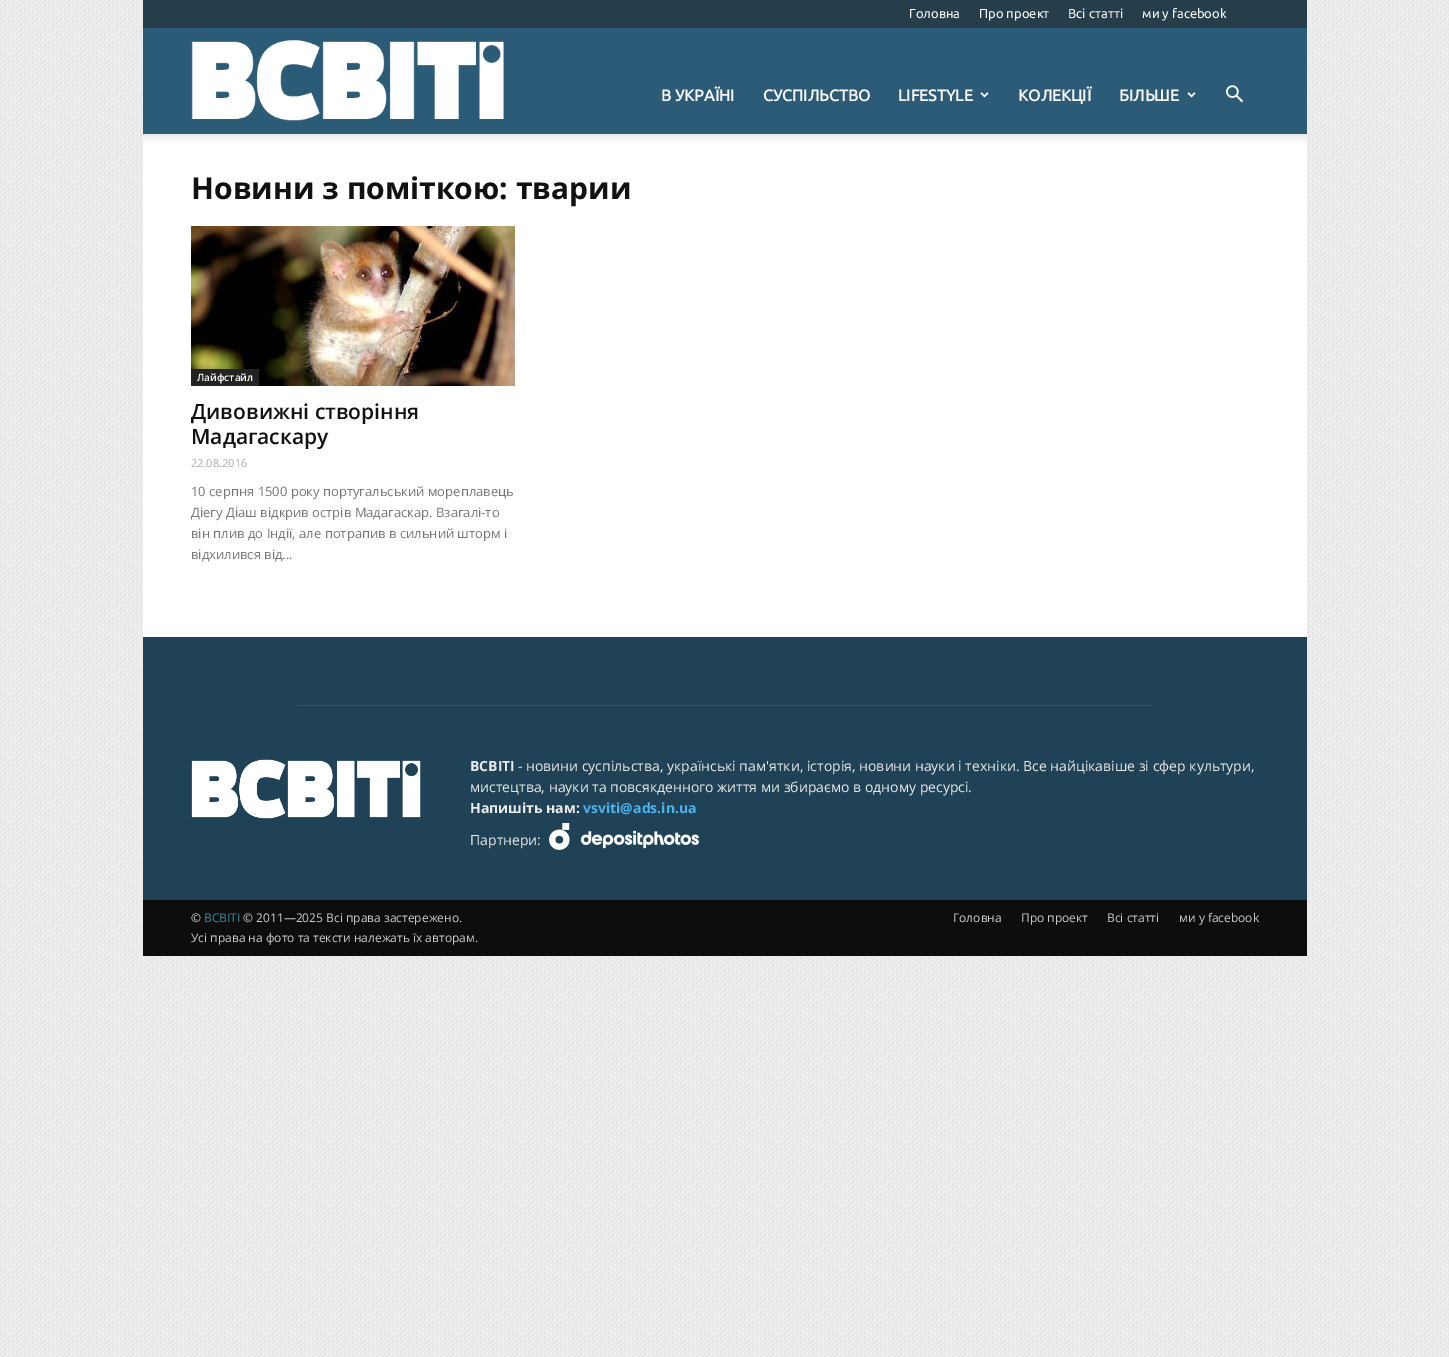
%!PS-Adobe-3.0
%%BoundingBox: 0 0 1449 1357
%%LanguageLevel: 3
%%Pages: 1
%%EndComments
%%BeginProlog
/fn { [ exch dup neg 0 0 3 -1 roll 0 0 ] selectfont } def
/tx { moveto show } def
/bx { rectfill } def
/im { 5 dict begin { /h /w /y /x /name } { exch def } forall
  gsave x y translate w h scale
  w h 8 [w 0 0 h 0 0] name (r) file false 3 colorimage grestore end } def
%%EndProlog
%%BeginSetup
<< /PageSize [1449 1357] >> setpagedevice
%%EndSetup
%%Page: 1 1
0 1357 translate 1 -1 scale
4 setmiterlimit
1 setgray
0 0 1449 1357 bx
(image0.raw) 0 0 1449 1357 im
0.149 0.239 0.294 setrgbcolor
143 0 1164 28 bx
/Ubuntu-Regular 13 fn
0.969 setgray
(Головна) 909 18 tx
(Про проект) 979 18 tx
(Всі статті) 1068 18 tx
(ми у facebook) 1142 18 tx
0.173 0.357 0.471 setrgbcolor
143 28 1164 106 bx
(image1.raw) 191 40 313 81 im
/Ubuntu-Bold 16 fn
0.969 setgray
(В УКРАЇНІ) 661 101 tx
(СУСПІЛЬСТВО) 763 101 tx
(LIFESTYLE) 898 101 tx
(image2.raw) 980 92 9 6 im
(КОЛЕКЦІЇ) 1018 101 tx
(БІЛЬШЕ) 1119 101 tx
(image2.raw) 1187 92 9 6 im
(image3.raw) 1226 85 17 18 im
1 setgray
143 134 1164 503 bx
(image4.raw) 143 134 1164 9 im
/OpenSans-Bold 30 fn
0.067 setgray
(Новини з поміткою: тварии) 191 199 tx
(image5.raw) 191 226 324 160 im
0.133 setgray
191 369 68 17 bx
/OpenSans-SemiBold 10 fn
1 setgray
(Лайфстайл) 197 381 tx
/OpenSans-SemiBold 21 fn
0.067 setgray
(Дивовижні створіння) 191 419 tx
(Мадагаскару) 191 444 tx
/OpenSans-Regular 11 fn
0.667 setgray
(22.08.2016) 191 467 tx
/OpenSans-Regular 13 fn
0.467 setgray
(10 серпня 1500 року португальський мореплавець) 191 496 tx
(Діегу Діаш відкрив острів Мадагаскар. Взагалі-то) 191 517 tx
(він плив до Індії, але потрапив в сильний шторм і) 191 538 tx
(відхилився від...) 191 559 tx
0.125 0.259 0.341 setrgbcolor
143 637 1164 263 bx
0.212 0.333 0.408 setrgbcolor
297 705 855 1 bx
(image6.raw) 191 759 230 60 im
/OpenSans-Bold 14 fn
0.918 setgray
(ВСВІТІ) 470 771 tx
/OpenSans-Regular 14 fn
(- новини суспільства, українські пам'ятки, історія, новини науки і техніки. Все найцікавіше зі сфер культури,) 518 771 tx
(мистецтва, науки та повсякденного життя ми збираємо в одному ресурсі.) 470 792 tx
/OpenSans-Bold 14 fn
(Напишіть нам:) 470 813 tx
0.302 0.698 0.925 setrgbcolor
(vsviti@ads.in.ua) 583 813 tx
/OpenSans-Regular 14 fn
0.918 setgray
(Партнери:) 470 845 tx
(image7.raw) 549 823 150 27 im
0.051 setgray
143 900 1164 56 bx
/OpenSans-Regular 12 fn
0.8 setgray
(©) 191 922 tx
0.216 0.545 0.639 setrgbcolor
(ВСВІТІ) 204 922 tx
0.8 setgray
(© 2011—2025 Всі права застережено.) 243 922 tx
(Усі права на фото та тексти належать їх авторам.) 191 942 tx
(Головна) 953 922 tx
(Про проект) 1021 922 tx
(Всі статті) 1107 922 tx
(ми у facebook) 1179 922 tx
showpage
%%EOF
